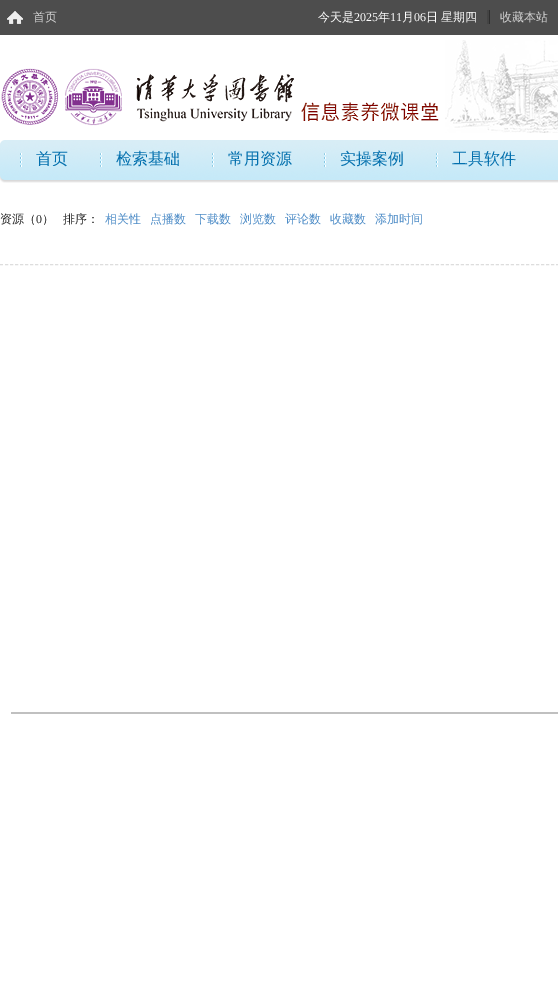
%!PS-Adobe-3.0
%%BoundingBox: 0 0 558 1005
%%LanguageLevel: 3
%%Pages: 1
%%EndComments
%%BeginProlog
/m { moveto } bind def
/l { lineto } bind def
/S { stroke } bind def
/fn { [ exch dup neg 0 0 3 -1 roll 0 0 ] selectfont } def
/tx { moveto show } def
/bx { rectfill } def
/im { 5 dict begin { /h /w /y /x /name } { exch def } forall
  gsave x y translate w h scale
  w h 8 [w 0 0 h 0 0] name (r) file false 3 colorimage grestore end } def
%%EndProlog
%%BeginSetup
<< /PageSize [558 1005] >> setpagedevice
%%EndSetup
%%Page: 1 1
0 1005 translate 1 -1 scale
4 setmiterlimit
1 setgray
0 0 558 1005 bx
0.302 setgray
0 0 558 35 bx
(image0.raw) 7 11 16 13 im
/WenQuanYiZenHei-Medium 12 fn
0.827 setgray
(首页) 33 21 tx
1 setgray
(今天是) 318 21 tx
/LiberationSerif-Regular 12 fn
(2025) 354 21 tx
/WenQuanYiZenHei-Medium 12 fn
(年) 378 21 tx
/LiberationSerif-Regular 12 fn
(11) 390 21 tx
/WenQuanYiZenHei-Medium 12 fn
(月) 402 21 tx
/LiberationSerif-Regular 12 fn
(06) 414 21 tx
/WenQuanYiZenHei-Medium 12 fn
(日) 426 21 tx
(星期四) 441 21 tx
0.267 setgray
487 10 2 14 bx
0.827 setgray
(收藏本站) 500 21 tx
0.18 setgray
489 10 1 14 bx
(image1.raw) 1 68 438 58 im
(image2.raw) 445 40 113 93 im
(image3.raw) 0 140 558 43 im
(image4.raw) 20 153 2 14 im
/WenQuanYiZenHei-Medium 16 fn
0.012 0.439 0.682 setrgbcolor
(首页) 36 164 tx
(image5.raw) 100 153 2 14 im
(检索基础) 116 164 tx
(image5.raw) 212 153 2 14 im
(常用资源) 228 164 tx
(image4.raw) 324 153 2 14 im
(实操案例) 340 164 tx
(image4.raw) 436 153 2 14 im
(工具软件) 452 164 tx
/WenQuanYiZenHei-Medium 12 fn
0.145 setgray
(资源（) 0 223 tx
/LiberationSerif-Regular 12 fn
(0) 36 223 tx
/WenQuanYiZenHei-Medium 12 fn
(）) 42 223 tx
(排序：) 63 223 tx
0.302 0.549 0.78 setrgbcolor
(相关性) 105 223 tx
(点播数) 150 223 tx
(下载数) 195 223 tx
(浏览数) 240 223 tx
(评论数) 285 223 tx
(收藏数) 330 223 tx
(添加时间) 375 223 tx
0.867 setgray
[3 2.01] 0 setdash
0 264.5 m 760 264.5 l S
0.753 setgray
11 712 547 2 bx
showpage
%%EOF
